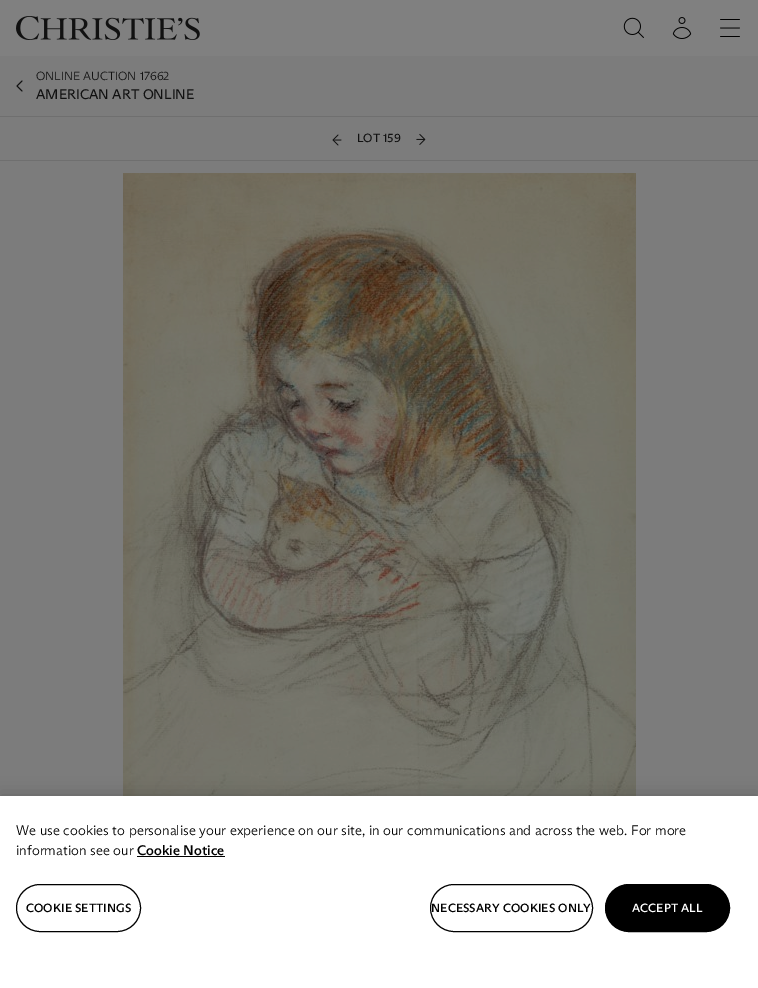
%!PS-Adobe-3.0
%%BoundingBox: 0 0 758 988
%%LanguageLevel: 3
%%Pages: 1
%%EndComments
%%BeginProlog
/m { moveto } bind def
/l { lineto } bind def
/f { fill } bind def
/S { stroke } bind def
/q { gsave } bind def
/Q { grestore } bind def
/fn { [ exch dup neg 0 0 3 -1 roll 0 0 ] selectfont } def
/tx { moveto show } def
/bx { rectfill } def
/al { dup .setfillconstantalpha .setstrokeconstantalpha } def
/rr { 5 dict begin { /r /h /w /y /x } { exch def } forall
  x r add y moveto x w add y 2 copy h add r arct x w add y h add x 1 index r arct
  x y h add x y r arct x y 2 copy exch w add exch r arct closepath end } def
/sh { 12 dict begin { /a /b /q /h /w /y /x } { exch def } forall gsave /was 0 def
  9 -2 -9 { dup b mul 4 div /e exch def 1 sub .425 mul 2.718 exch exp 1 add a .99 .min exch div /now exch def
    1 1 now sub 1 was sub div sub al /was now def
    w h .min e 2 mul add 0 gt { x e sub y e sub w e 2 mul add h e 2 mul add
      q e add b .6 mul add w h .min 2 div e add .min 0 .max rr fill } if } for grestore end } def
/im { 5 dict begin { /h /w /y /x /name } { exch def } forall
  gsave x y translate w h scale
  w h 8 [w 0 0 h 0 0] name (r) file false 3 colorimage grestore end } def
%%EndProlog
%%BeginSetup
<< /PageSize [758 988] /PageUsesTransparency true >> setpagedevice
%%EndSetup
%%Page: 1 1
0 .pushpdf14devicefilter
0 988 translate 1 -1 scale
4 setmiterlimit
0.502 setgray
0 0 758 988 bx
(image0.raw) 16 16 184 24 im
(image1.raw) 623 17 21 21 im
(image2.raw) 672 17 20 22 im
(image3.raw) 720 19 20 18 im
0.486 setgray
0 56 758 740 bx
0.067 setgray
1 setlinecap
1 setlinejoin
22 81 m 17 86 l 22 91 l S
/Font-Light 12 fn
(ONLINE AUCTION 17662) 36 80 tx
/Font-Regular 14 fn
(AMERICAN ART ONLINE) 36 99 tx
0.435 setgray
0 116 758 1 bx
0 160 758 1 bx
(image4.raw) 332 134 10 12 im
/Font-Regular 12 fn
0.067 setgray
(LOT 159) 357 142 tx
(image5.raw) 416 133 10 12 im
(image6.raw) 123 173 513 623 im
0 setgray
0 796 758 192 0 9 0.2 sh
1 setgray
0 796 758 192 bx
/Font-Light 14 fn
0 setgray
(We use cookies to personalise your experience on our site, in our communications and across the web. For more) 16 835 tx
(information see our) 16 855 tx
/Font-Medium 14 fn
(Cookie Notice) 137 855 tx
137 856 88 1 bx
0 setlinecap
0 setlinejoin
16.5 884.5 124 47 23.5 rr S
/Font-Medium 12 fn
26 912 m 0.1 0 (COOKIE SETTINGS) ashow
430.5 884.5 162 47 23.5 rr S
431 912 m 0.1 0 (NECESSARY COOKIES ONLY) ashow
605.5 884.5 124 47 23.5 rr q f Q
S
1 setgray
632 912 m 0.1 0 (ACCEPT ALL) ashow
.poppdf14devicefilter showpage
%%EOF
